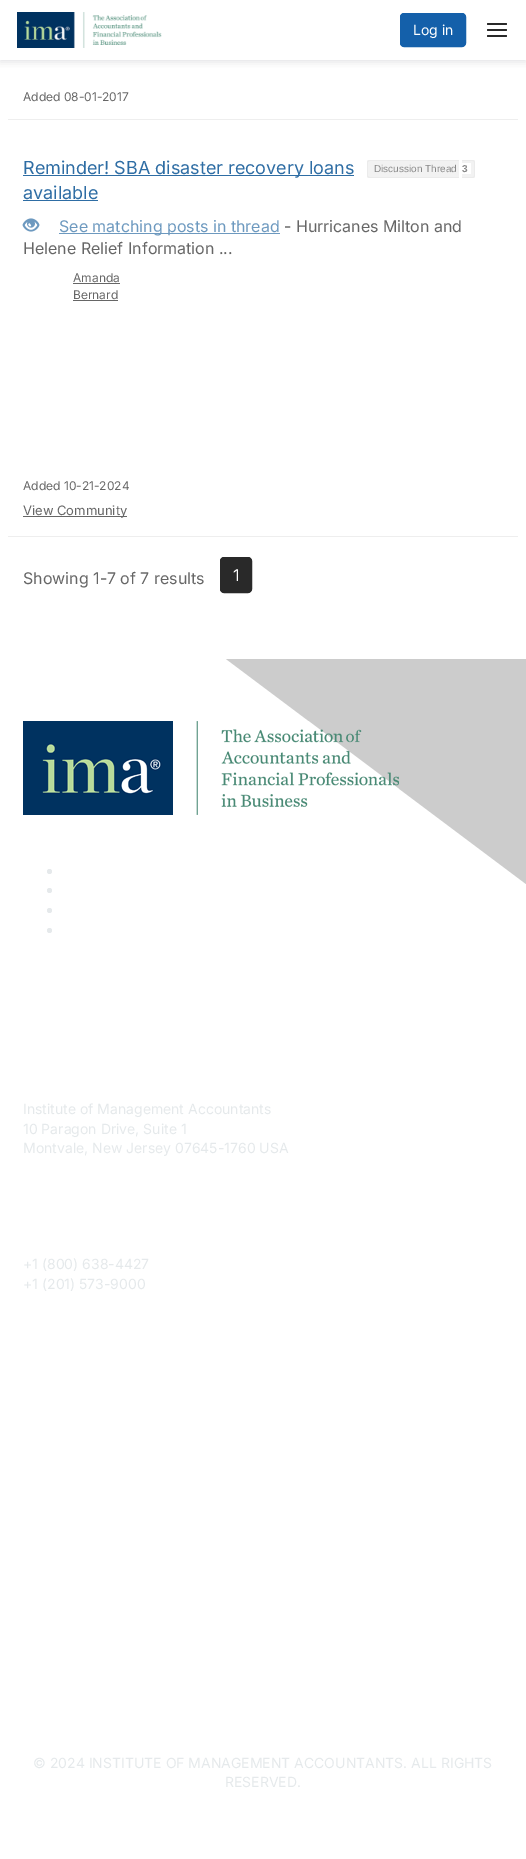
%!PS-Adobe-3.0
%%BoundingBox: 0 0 526 1859
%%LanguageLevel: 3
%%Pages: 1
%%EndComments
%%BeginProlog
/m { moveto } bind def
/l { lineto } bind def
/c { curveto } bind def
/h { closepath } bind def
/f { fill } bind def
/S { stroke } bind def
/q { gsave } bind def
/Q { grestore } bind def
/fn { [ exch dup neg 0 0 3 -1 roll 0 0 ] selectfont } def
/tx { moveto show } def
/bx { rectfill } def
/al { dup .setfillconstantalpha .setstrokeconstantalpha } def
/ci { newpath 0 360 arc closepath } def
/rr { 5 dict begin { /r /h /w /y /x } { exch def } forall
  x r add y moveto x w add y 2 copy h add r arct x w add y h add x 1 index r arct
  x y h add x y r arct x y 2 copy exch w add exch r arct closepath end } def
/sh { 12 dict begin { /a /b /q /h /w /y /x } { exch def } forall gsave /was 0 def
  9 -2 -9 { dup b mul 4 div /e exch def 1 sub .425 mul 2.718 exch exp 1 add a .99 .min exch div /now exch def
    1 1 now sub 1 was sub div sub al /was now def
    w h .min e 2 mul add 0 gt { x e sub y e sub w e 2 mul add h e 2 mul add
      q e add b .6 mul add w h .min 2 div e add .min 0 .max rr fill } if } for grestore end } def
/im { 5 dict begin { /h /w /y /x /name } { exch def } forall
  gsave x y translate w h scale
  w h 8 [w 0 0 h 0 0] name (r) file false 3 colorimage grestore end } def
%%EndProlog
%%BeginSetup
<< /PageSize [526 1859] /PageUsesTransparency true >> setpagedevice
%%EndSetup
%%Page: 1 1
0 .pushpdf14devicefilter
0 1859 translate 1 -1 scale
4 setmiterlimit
1 setgray
0 0 526 1859 bx
q
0 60 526 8 rectclip
0.514 0.529 0.569 setrgbcolor
0 2 526 60 0 4 0.24 sh
Q
(image0.raw) 17 12 145 36 im
0.078 0.376 0.667 setrgbcolor
400.5 13.5 65 33 3.5 rr q f Q
S
/Inter-Regular 14 fn
1 setgray
(Log in) 413 35 tx
0.161 setgray
487 23 20 2 1 rr f
487 29 20 2 1 rr f
487 35 20 2 1 rr f
/Inter-Regular 12 fn
0.4 setgray
(Added 08-01-2017) 23 101 tx
0.933 setgray
8 119 510 1 bx
0.18 0.427 0.643 setrgbcolor
23 175 331 1 bx
/Inter-Regular 18 fn
(Reminder! SBA disaster recovery loans) 23 174 tx
0.949 setgray
369.5 160 m 459 160 l 459 178 l 369.5 178 l 368 178 367 177 367 175.5 c 367 162.5 l 367 161 368 160 369.5 160 c h f
0.922 setgray
370 160 m 459 160 l 459 178 l 370 178 l 368 178 367 177 367 176 c 367 162 l 367 161 368 160 370 160 c h 370 161 m 459 161 l 459 177 l 370 177 l 369 177 368 176 368 176 c 368 162 l 368 162 369 161 370 161 c h eofill
/LiberationSans-Regular 10 fn
0.533 setgray
(Discussion Thread) 374 172 tx
0.949 setgray
462 160 m 472.5 160 l 474 160 475 161 475 162.5 c 475 175.5 l 475 177 474 178 472.5 178 c 462 178 l h f
0.922 setgray
462 160 m 472.5 160 l 474 160 475 161 475 162.5 c 475 175.5 l 475 177 474 178 472.5 178 c 462 178 l h 462 161 m 472.5 161 l 473.5 161 474 161.5 474 162.5 c 474 175.5 l 474 176.5 473.5 177 472.5 177 c 462 177 l h eofill
1 setgray
462 163 9 11 bx
/LiberationSans-Bold 10 fn
0.533 setgray
(3) 462 172 tx
/Inter-Regular 18 fn
0.18 0.427 0.643 setrgbcolor
(available) 23 199 tx
23 200 75 1 bx
(image1.raw) 22 218 18 14 im
0.427 0.6 0.749 setrgbcolor
59 233 221 1 bx
/Inter-Regular 16 fn
(See matching posts in thread) 59 232 tx
0.4 setgray
(- Hurricanes Milton and) 284 232 tx
(Helene Relief Information ...) 23 254 tx
/Inter-Regular 12 fn
(Amanda) 73 282 tx
73 283 47 1 bx
(Bernard) 73 299 tx
73 300 45 1 bx
(Added 10-21-2024) 23 490 tx
23 516 104 1 bx
/Inter-Regular 13 fn
(View Community) 23 515 tx
0.933 setgray
8 536 510 1 bx
/Inter-Regular 16 fn
0.4 setgray
(Showing 1-7 of 7 results) 23 584 tx
0.161 setgray
220.5 557.5 31 35 3.5 rr q f Q
S
1 setgray
(1) 233 581 tx
0.8 setgray
526 659 m 526 884 l 226 659 l h f
(image2.raw) 23 721 376 94 im
0.898 0.914 0.922 setrgbcolor
49.5 871.5 2.5 ci f
49.5 890.5 2.5 ci f
49.5 910.5 2.5 ci f
49.5 930.5 2.5 ci f
/Inter-Regular 14 fn
(Institute of Management Accountants) 23 1114 tx
(10 Paragon Drive, Suite 1) 23 1134 tx
(Montvale, New Jersey 07645-1760 USA) 23 1153 tx
(+1 \(800\) 638-4427) 23 1269 tx
(+1 \(201\) 573-9000) 23 1289 tx
(© 2024 INSTITUTE OF MANAGEMENT ACCOUNTANTS. ALL RIGHTS) 33 1768 tx
(RESERVED.) 225 1787 tx
.poppdf14devicefilter showpage
%%EOF
